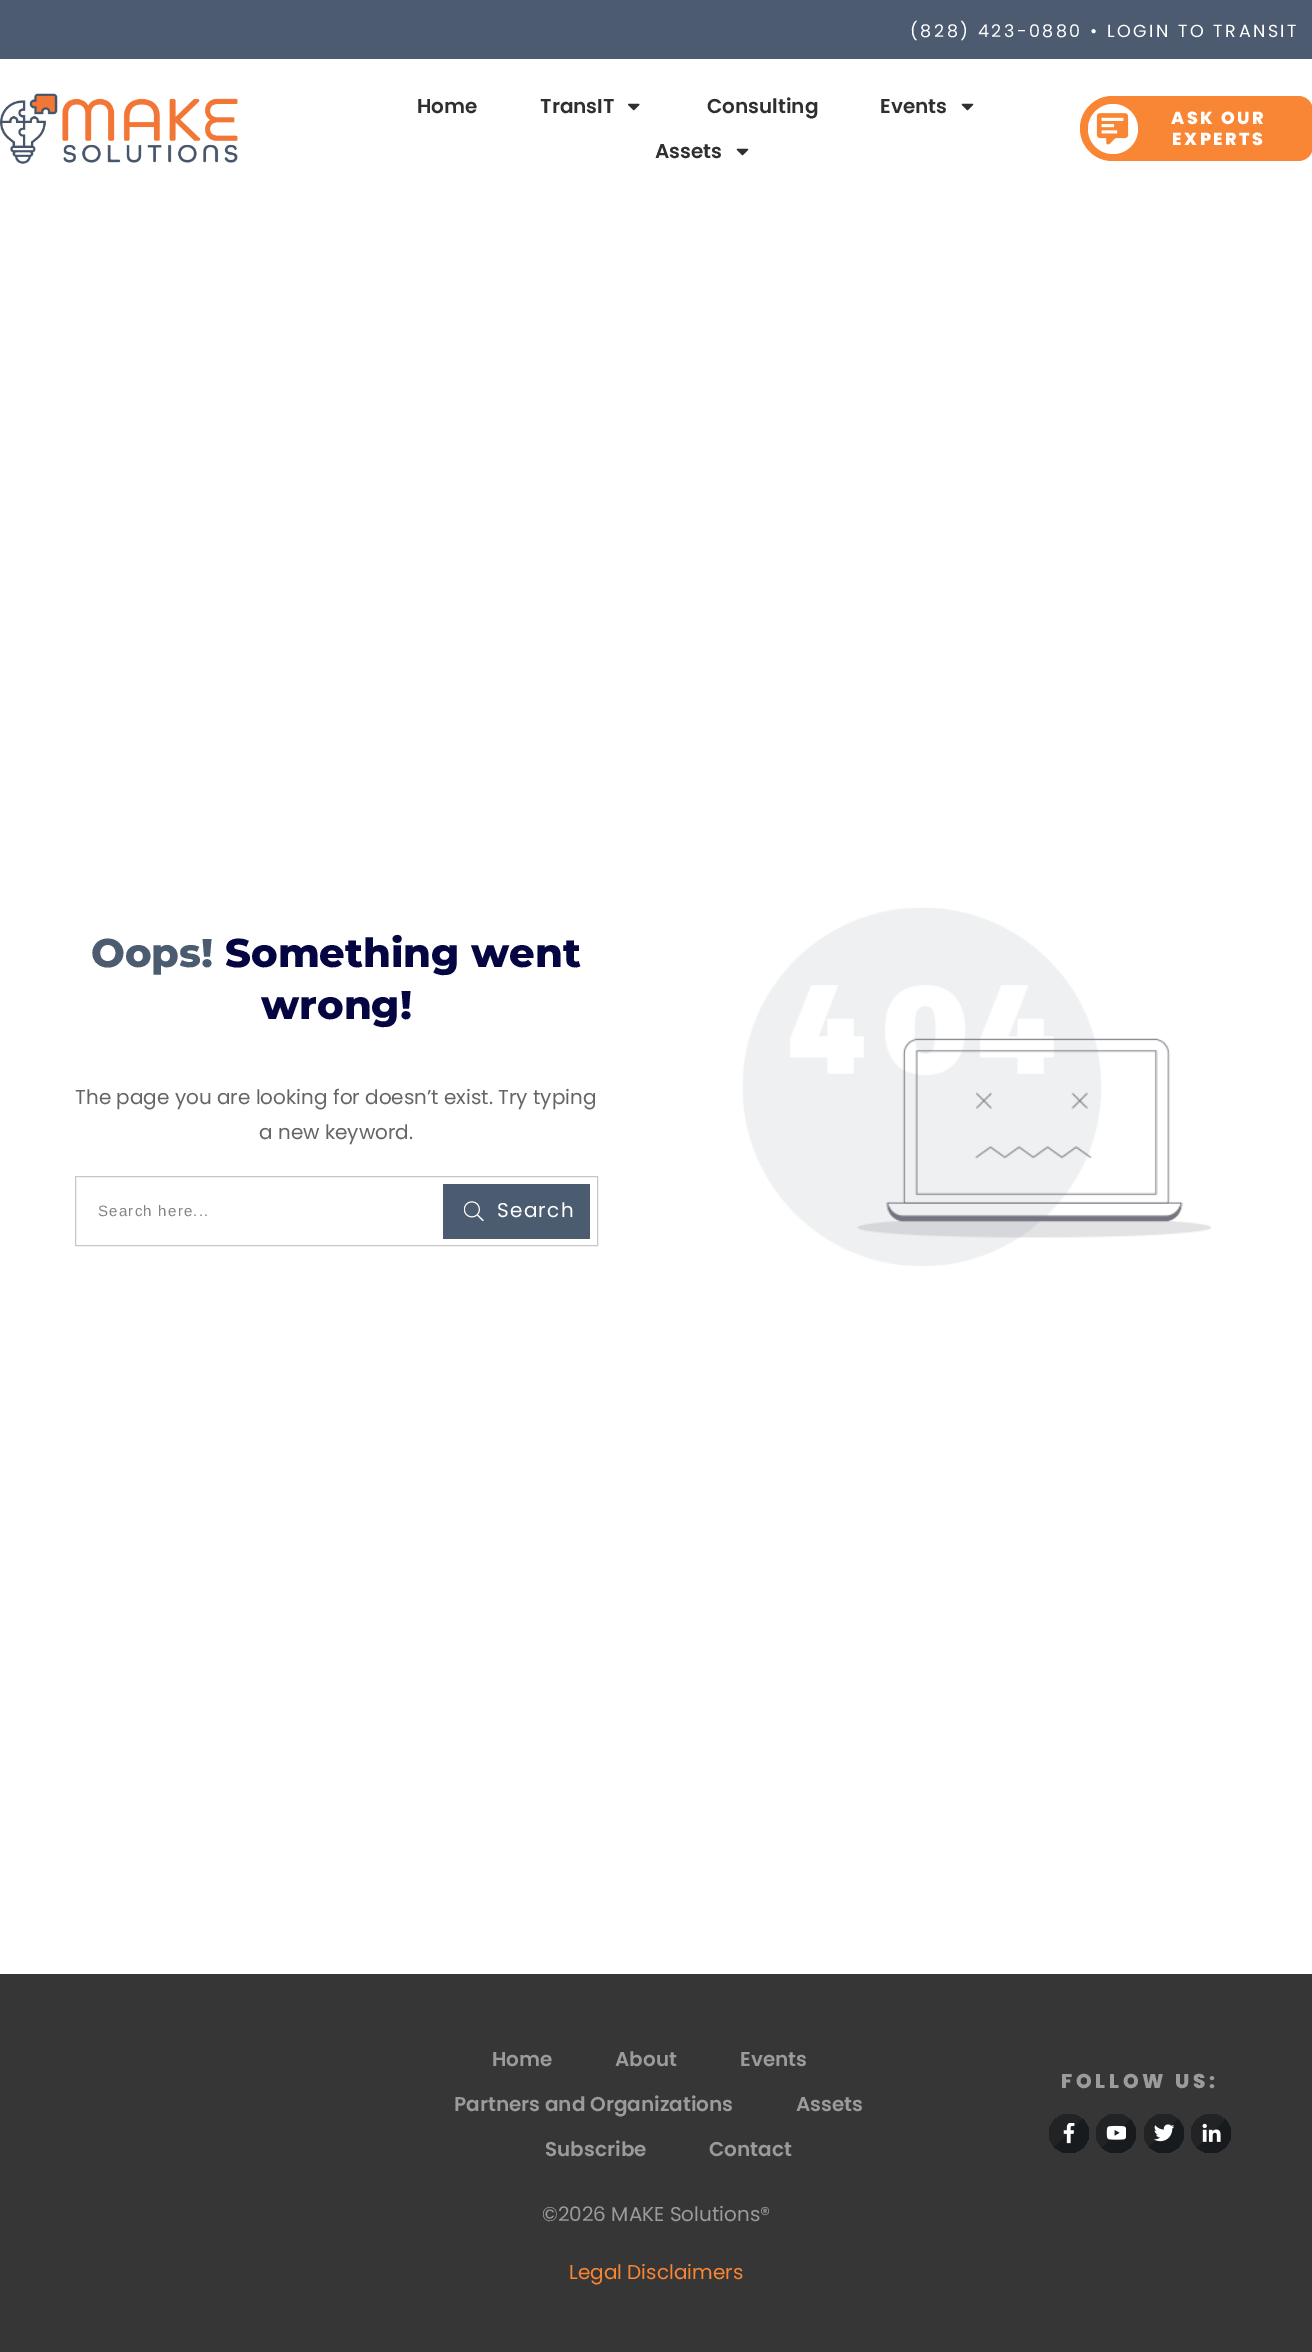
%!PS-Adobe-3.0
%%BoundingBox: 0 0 1312 2352
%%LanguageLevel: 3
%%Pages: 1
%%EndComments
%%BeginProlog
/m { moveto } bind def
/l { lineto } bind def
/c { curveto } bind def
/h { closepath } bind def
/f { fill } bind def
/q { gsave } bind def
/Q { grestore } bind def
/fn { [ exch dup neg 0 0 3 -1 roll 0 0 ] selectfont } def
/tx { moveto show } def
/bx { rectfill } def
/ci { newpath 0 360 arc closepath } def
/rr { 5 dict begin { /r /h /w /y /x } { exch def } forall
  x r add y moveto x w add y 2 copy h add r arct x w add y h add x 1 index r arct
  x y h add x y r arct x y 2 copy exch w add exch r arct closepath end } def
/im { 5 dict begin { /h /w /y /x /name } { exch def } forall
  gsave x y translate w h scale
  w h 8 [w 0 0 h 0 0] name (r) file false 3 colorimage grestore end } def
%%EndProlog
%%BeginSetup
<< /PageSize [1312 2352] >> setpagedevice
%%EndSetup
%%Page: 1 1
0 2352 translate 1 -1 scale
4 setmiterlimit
1 setgray
0 0 1312 2352 bx
0.298 0.357 0.435 setrgbcolor
0 0 1312 59 bx
/Poppins-Regular 17.5 fn
1 setgray
910 37 m 2.5 0 (\(828\) 423-0880 • LOGIN TO TRANSIT) ashow
(image0.raw) 0 93 238 71 im
/Poppins-SemiBold 20 fn
0.184 setgray
(Home) 417 113 tx
(TransIT) 540 113 tx
(image1.raw) 628 103 12 8 im
(Consulting) 707 113 tx
(Events) 880 113 tx
(image2.raw) 961 103 13 8 im
(Assets) 655 158 tx
(image2.raw) 736 148 13 8 im
0.976 0.525 0.204 setrgbcolor
1112.5 96 m 1298 96 l 1306.5 96 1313 102.5 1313 111 c 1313 146 l 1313 154.5 1306.5 161 1298 161 c 1112.5 161 l 1094.5 161 1080 146.5 1080 128.5 c 1080 110.5 1094.5 96 1112.5 96 c h f
1 setgray
1113 129 25 ci f
(image3.raw) 1096 113 33 32 im
/Poppins-ExtraBold 17.5 fn
1171 124 m 2.5 0 (ASK OUR) ashow
1172 145 m 2.5 0 (EXPERTS) ashow
/Montserrat-ExtraBold 40 fn
0.298 0.361 0.439 setrgbcolor
(Oops!) 91 967 tx
0.02 0.02 0.255 setrgbcolor
(Something went) 225 967 tx
(wrong!) 261 1019 tx
/Poppins-Regular 20 fn
0.396 setgray
(The page you are looking for doesn’t exist. Try typing) 75 1104 tx
(a new keyword.) 259 1139 tx
0.78 setgray
75.5 1176.5 522 69 rectstroke
/LiberationSans-Regular 15 fn
0.522 setgray
98 1216 m 1.25 0 (Search here...) ashow
0.298 0.361 0.439 setrgbcolor
443 1184 147 55 bx
(image4.raw) 464 1201 20 20 im
/Poppins-Regular 20 fn
1 setgray
497 1217 m 1.25 0 (Search) ashow
(image5.raw) 742 907 469 359 im
0.212 setgray
0 1974 1312 378 bx
/Poppins-SemiBold 20 fn
0.608 setgray
(Home) 492 2066 tx
(About) 615 2066 tx
(Events) 740 2066 tx
(Partners and Organizations) 454 2111 tx
(Assets) 796 2111 tx
(Subscribe) 545 2156 tx
(Contact) 709 2156 tx
/Poppins-ExtraBold 20 fn
1061 2088 m 3.75 0 (FOLLOW US:) ashow
q 1049 2114 40 39 19.5 rr clip newpath
<< /ShadingType 2 /ColorSpace /DeviceRGB /Coords [1049 2113 1088 2153] /Extend [true true] /Function << /FunctionType 3 /Domain [0 1] /Functions [<< /FunctionType 2 /Domain [0 1] /C0 [0.129 0.137 0.145] /C1 [0.129 0.137 0.145] /N 1 >> << /FunctionType 2 /Domain [0 1] /C0 [0.094 0.106 0.118] /C1 [0.094 0.106 0.118] /N 1 >>] /Bounds [0.5] /Encode [0 1 0 1] >> >> shfill Q
(image6.raw) 1063 2123 12 21 im
q 1096 2114 40 39 19.5 rr clip newpath
<< /ShadingType 2 /ColorSpace /DeviceRGB /Coords [1097 2113 1136 2153] /Extend [true true] /Function << /FunctionType 3 /Domain [0 1] /Functions [<< /FunctionType 2 /Domain [0 1] /C0 [0.129 0.137 0.145] /C1 [0.129 0.137 0.145] /N 1 >> << /FunctionType 2 /Domain [0 1] /C0 [0.094 0.106 0.118] /C1 [0.094 0.106 0.118] /N 1 >>] /Bounds [0.5] /Encode [0 1 0 1] >> >> shfill Q
(image7.raw) 1106 2125 20 15 im
q 1144 2114 40 39 19.5 rr clip newpath
<< /ShadingType 2 /ColorSpace /DeviceRGB /Coords [1144 2113 1183 2153] /Extend [true true] /Function << /FunctionType 3 /Domain [0 1] /Functions [<< /FunctionType 2 /Domain [0 1] /C0 [0.129 0.137 0.145] /C1 [0.129 0.137 0.145] /N 1 >> << /FunctionType 2 /Domain [0 1] /C0 [0.094 0.106 0.118] /C1 [0.094 0.106 0.118] /N 1 >>] /Bounds [0.5] /Encode [0 1 0 1] >> >> shfill Q
(image8.raw) 1154 2124 20 18 im
q 1191 2114 40 39 19.5 rr clip newpath
<< /ShadingType 2 /ColorSpace /DeviceRGB /Coords [1192 2113 1231 2153] /Extend [true true] /Function << /FunctionType 3 /Domain [0 1] /Functions [<< /FunctionType 2 /Domain [0 1] /C0 [0.129 0.137 0.145] /C1 [0.129 0.137 0.145] /N 1 >> << /FunctionType 2 /Domain [0 1] /C0 [0.094 0.106 0.118] /C1 [0.094 0.106 0.118] /N 1 >>] /Bounds [0.5] /Encode [0 1 0 1] >> >> shfill Q
(image9.raw) 1202 2123 19 19 im
/Poppins-Regular 20 fn
(©2026 MAKE Solutions®) 542 2221 tx
0.976 0.525 0.204 setrgbcolor
(Legal Disclaimers) 569 2279 tx
showpage
%%EOF
